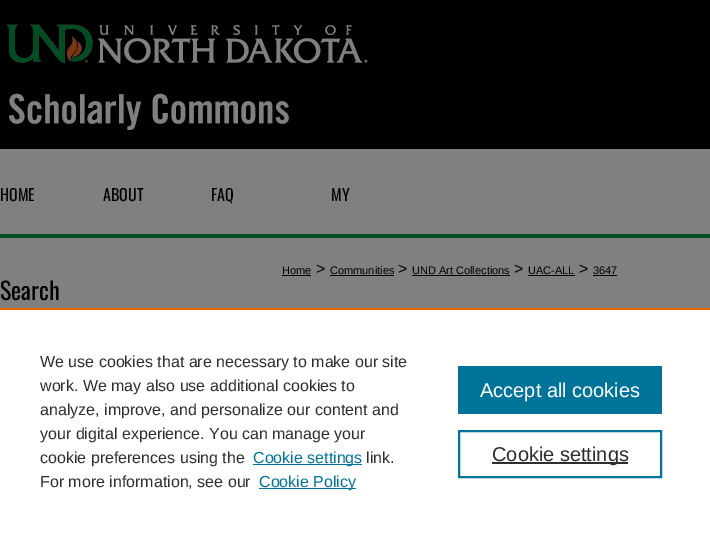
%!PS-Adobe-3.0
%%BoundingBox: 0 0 710 534
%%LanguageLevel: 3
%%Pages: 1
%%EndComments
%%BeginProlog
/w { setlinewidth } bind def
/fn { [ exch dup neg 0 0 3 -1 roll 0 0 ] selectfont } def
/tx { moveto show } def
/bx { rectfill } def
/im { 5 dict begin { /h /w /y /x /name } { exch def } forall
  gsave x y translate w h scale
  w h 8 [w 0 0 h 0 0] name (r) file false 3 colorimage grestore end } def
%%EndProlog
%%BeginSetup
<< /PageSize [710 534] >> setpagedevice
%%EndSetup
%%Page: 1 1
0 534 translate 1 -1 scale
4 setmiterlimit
0.502 setgray
0 0 710 534 bx
(image0.raw) 0 0 710 238 im
(image1.raw) 6 24 362 40 im
(image2.raw) 6 82 362 48 im
/Oswald-Regular 16 fn
0 setgray
(HOME) 0 201 tx
(ABOUT) 103 201 tx
(FAQ) 211 201 tx
(MY) 331 201 tx
/LiberationSans-Regular 11 fn
(Home) 282 274 tx
282 275 29 1 bx
/LiberationSans-Regular 16 fn
(>) 316 274 tx
/LiberationSans-Regular 11 fn
(Communities) 330 274 tx
330 275 64 1 bx
/LiberationSans-Regular 16 fn
(>) 398 274 tx
/LiberationSans-Regular 11 fn
(UND Art Collections) 412 274 tx
412 275 98 1 bx
/LiberationSans-Regular 16 fn
(>) 514 274 tx
/LiberationSans-Regular 11 fn
(UAC-ALL) 528 274 tx
528 275 47 1 bx
/LiberationSans-Regular 16 fn
(>) 579 274 tx
/LiberationSans-Regular 11 fn
(3647) 593 274 tx
593 275 24 1 bx
/Oswald-Regular 24 fn
(Search) 0 300 tx
1 setgray
0 310 710 224 bx
0.922 0.396 0 setrgbcolor
0 308 710 2 bx
/LiberationSans-Regular 16 fn
0.18 setgray
(We use cookies that are necessary to make our site) 40 367 tx
(work. We may also use additional cookies to) 40 391 tx
(analyze, improve, and personalize our content and) 40 415 tx
(your digital experience. You can manage your) 40 439 tx
(cookie preferences using the) 40 463 tx
0 0.451 0.596 setrgbcolor
253 464 109 1 bx
(Cookie settings) 253 463 tx
0.18 setgray
(link.) 366 463 tx
(For more information, see our) 40 487 tx
0 0.451 0.596 setrgbcolor
259 488 97 1 bx
(Cookie Policy) 259 487 tx
458 366 204 48 bx
/LiberationSans-Regular 20 fn
1 setgray
(Accept all cookies) 480 397 tx
0 0.451 0.596 setrgbcolor
2 w
459 431 202 46 rectstroke
0.18 setgray
492 462 136 2 bx
(Cookie settings) 492 461 tx
showpage
%%EOF
